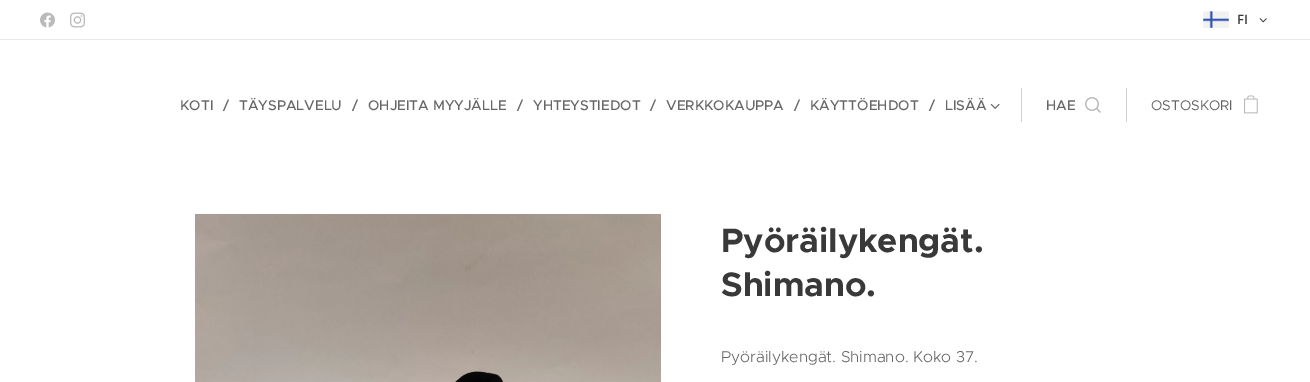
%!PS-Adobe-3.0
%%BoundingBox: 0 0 1310 382
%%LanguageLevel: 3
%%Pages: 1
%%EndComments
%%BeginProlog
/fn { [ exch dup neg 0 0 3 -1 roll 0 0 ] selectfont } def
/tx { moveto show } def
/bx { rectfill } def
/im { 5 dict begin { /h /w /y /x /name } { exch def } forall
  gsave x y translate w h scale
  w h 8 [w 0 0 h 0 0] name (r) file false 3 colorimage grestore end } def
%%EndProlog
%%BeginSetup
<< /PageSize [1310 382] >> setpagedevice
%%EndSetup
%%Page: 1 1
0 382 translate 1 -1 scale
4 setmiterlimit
1 setgray
0 0 1310 382 bx
(image0.raw) 40 12 15 16 im
(image1.raw) 70 12 15 16 im
(image2.raw) 1203 11 26 17 im
/OpenSans-SemiBold 13 fn
0.224 setgray
(FI) 1237 24 tx
(image3.raw) 1259 18 8 5 im
0.91 setgray
0 39 1310 1 bx
/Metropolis-Medium 14 fn
0.4 setgray
(KOTI) 180 110 tx
(/) 223 110 tx
(TÄYSPALVELU) 239 110 tx
(/) 352 110 tx
(OHJEITA MYYJÄLLE) 368 110 tx
(/) 517 110 tx
(YHTEYSTIEDOT) 533 110 tx
(/) 650 110 tx
(VERKKOKAUPPA) 666 110 tx
(/) 794 110 tx
(KÄYTTÖEHDOT) 810 110 tx
(/) 929 110 tx
(LISÄÄ) 945 110 tx
(image4.raw) 990 103 10 6 im
0.82 setgray
1021 88 1 34 bx
0.4 setgray
(HAE) 1046 110 tx
(image5.raw) 1085 97 16 16 im
0.82 setgray
1126 88 1 34 bx
/Metropolis-Regular 14 fn
0.4 setgray
(OSTOSKORI) 1151 110 tx
(image6.raw) 1244 95 14 19 im
(image7.raw) 195 214 466 168 im
/Metropolis-Bold 34 fn
0.224 setgray
(Pyöräilykengät.) 721 252 tx
(Shimano.) 721 296 tx
/Metropolis-Light 15.75 fn
0.4 setgray
(Pyöräilykengät. Shimano. Koko 37.) 721 362 tx
showpage
%%EOF
